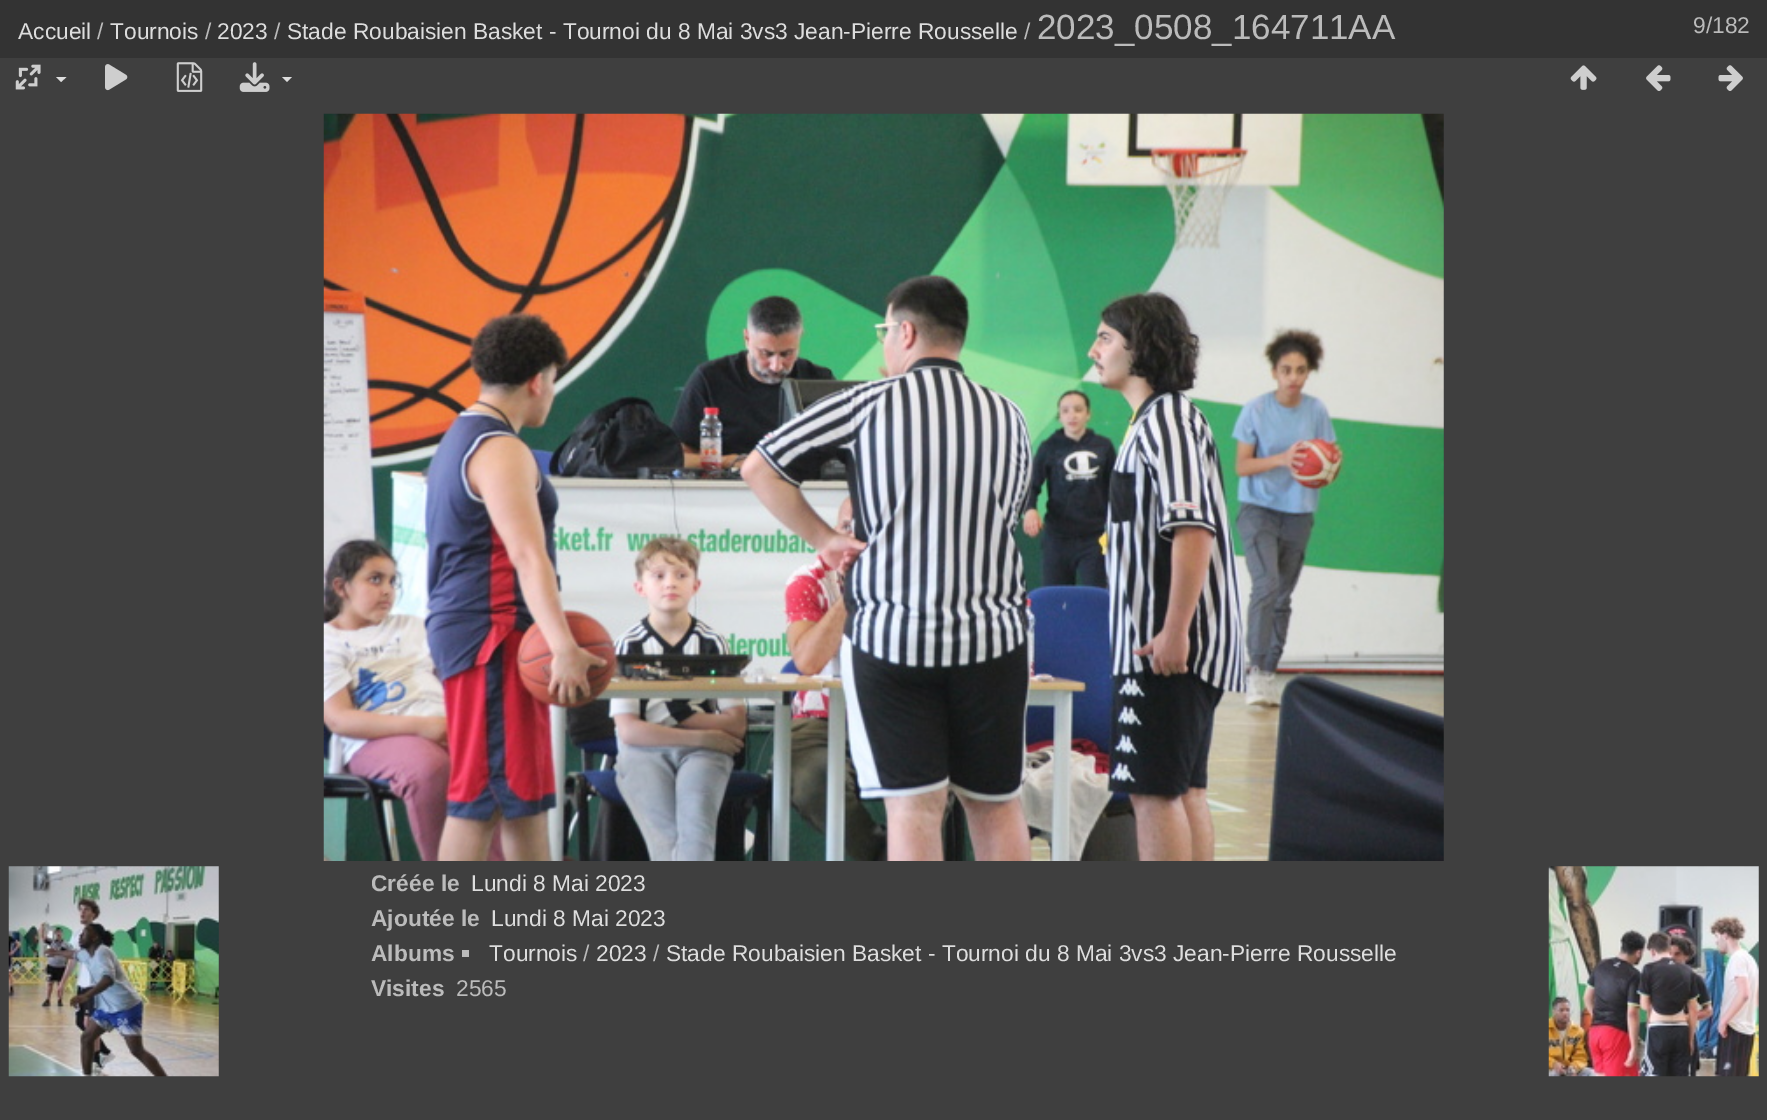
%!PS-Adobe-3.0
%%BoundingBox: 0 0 1767 1120
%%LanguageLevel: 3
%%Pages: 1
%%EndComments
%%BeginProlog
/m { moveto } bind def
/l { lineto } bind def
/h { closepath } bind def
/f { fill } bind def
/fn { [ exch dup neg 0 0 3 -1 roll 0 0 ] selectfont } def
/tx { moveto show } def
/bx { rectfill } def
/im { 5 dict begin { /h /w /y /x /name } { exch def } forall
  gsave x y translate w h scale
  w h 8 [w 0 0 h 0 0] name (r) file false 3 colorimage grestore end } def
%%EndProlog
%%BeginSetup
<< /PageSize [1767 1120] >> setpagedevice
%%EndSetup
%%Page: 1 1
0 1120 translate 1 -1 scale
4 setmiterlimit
0.247 setgray
0 0 1767 1120 bx
0.2 setgray
0 0 1767 58 bx
/LiberationSans-Regular 22.75 fn
0.867 setgray
(Accueil) 18 39 tx
0.733 setgray
(/) 97 39 tx
0.867 setgray
(Tournois) 110 39 tx
0.733 setgray
(/) 205 39 tx
0.867 setgray
(2023) 217 39 tx
0.733 setgray
(/) 274 39 tx
0.867 setgray
(Stade Roubaisien Basket - Tournoi du 8 Mai 3vs3 Jean-Pierre Rousselle) 287 39 tx
0.733 setgray
(/) 1024 39 tx
/LiberationSans-Regular 35 fn
(2023_0508_164711AA) 1037 39 tx
/LiberationSans-Regular 22.75 fn
(9/182) 1693 33 tx
(image0.raw) 15 64 26 26 im
0.867 setgray
56 77 m 66.5 77 l 61 82 l h f
(image1.raw) 105 64 23 27 im
(image2.raw) 176 62 27 30 im
(image3.raw) 239 62 31 30 im
282 77 m 292 77 l 287 82 l h f
(image4.raw) 1570 65 27 25 im
(image5.raw) 1646 65 25 26 im
(image6.raw) 1718 65 25 26 im
(image7.raw) 323 113 1121 748 im
(image8.raw) 8 866 211 211 im
(image9.raw) 1548 866 211 211 im
/LiberationSans-Bold 22.75 fn
0.733 setgray
(Créée le) 371 891 tx
/LiberationSans-Regular 22.75 fn
0.867 setgray
(Lundi 8 Mai 2023) 471 891 tx
/LiberationSans-Bold 22.75 fn
0.733 setgray
(Ajoutée le) 371 926 tx
/LiberationSans-Regular 22.75 fn
0.867 setgray
(Lundi 8 Mai 2023) 491 926 tx
/LiberationSans-Bold 22.75 fn
0.733 setgray
(Albums) 371 961 tx
462 950 7 7 bx
/LiberationSans-Regular 22.75 fn
0.867 setgray
(Tournois) 489 961 tx
0.733 setgray
(/) 583 961 tx
0.867 setgray
(2023) 596 961 tx
0.733 setgray
(/) 653 961 tx
0.867 setgray
(Stade Roubaisien Basket - Tournoi du 8 Mai 3vs3 Jean-Pierre Rousselle) 666 961 tx
/LiberationSans-Bold 22.75 fn
0.733 setgray
(Visites) 371 996 tx
/LiberationSans-Regular 22.75 fn
(2565) 456 996 tx
showpage
%%EOF
